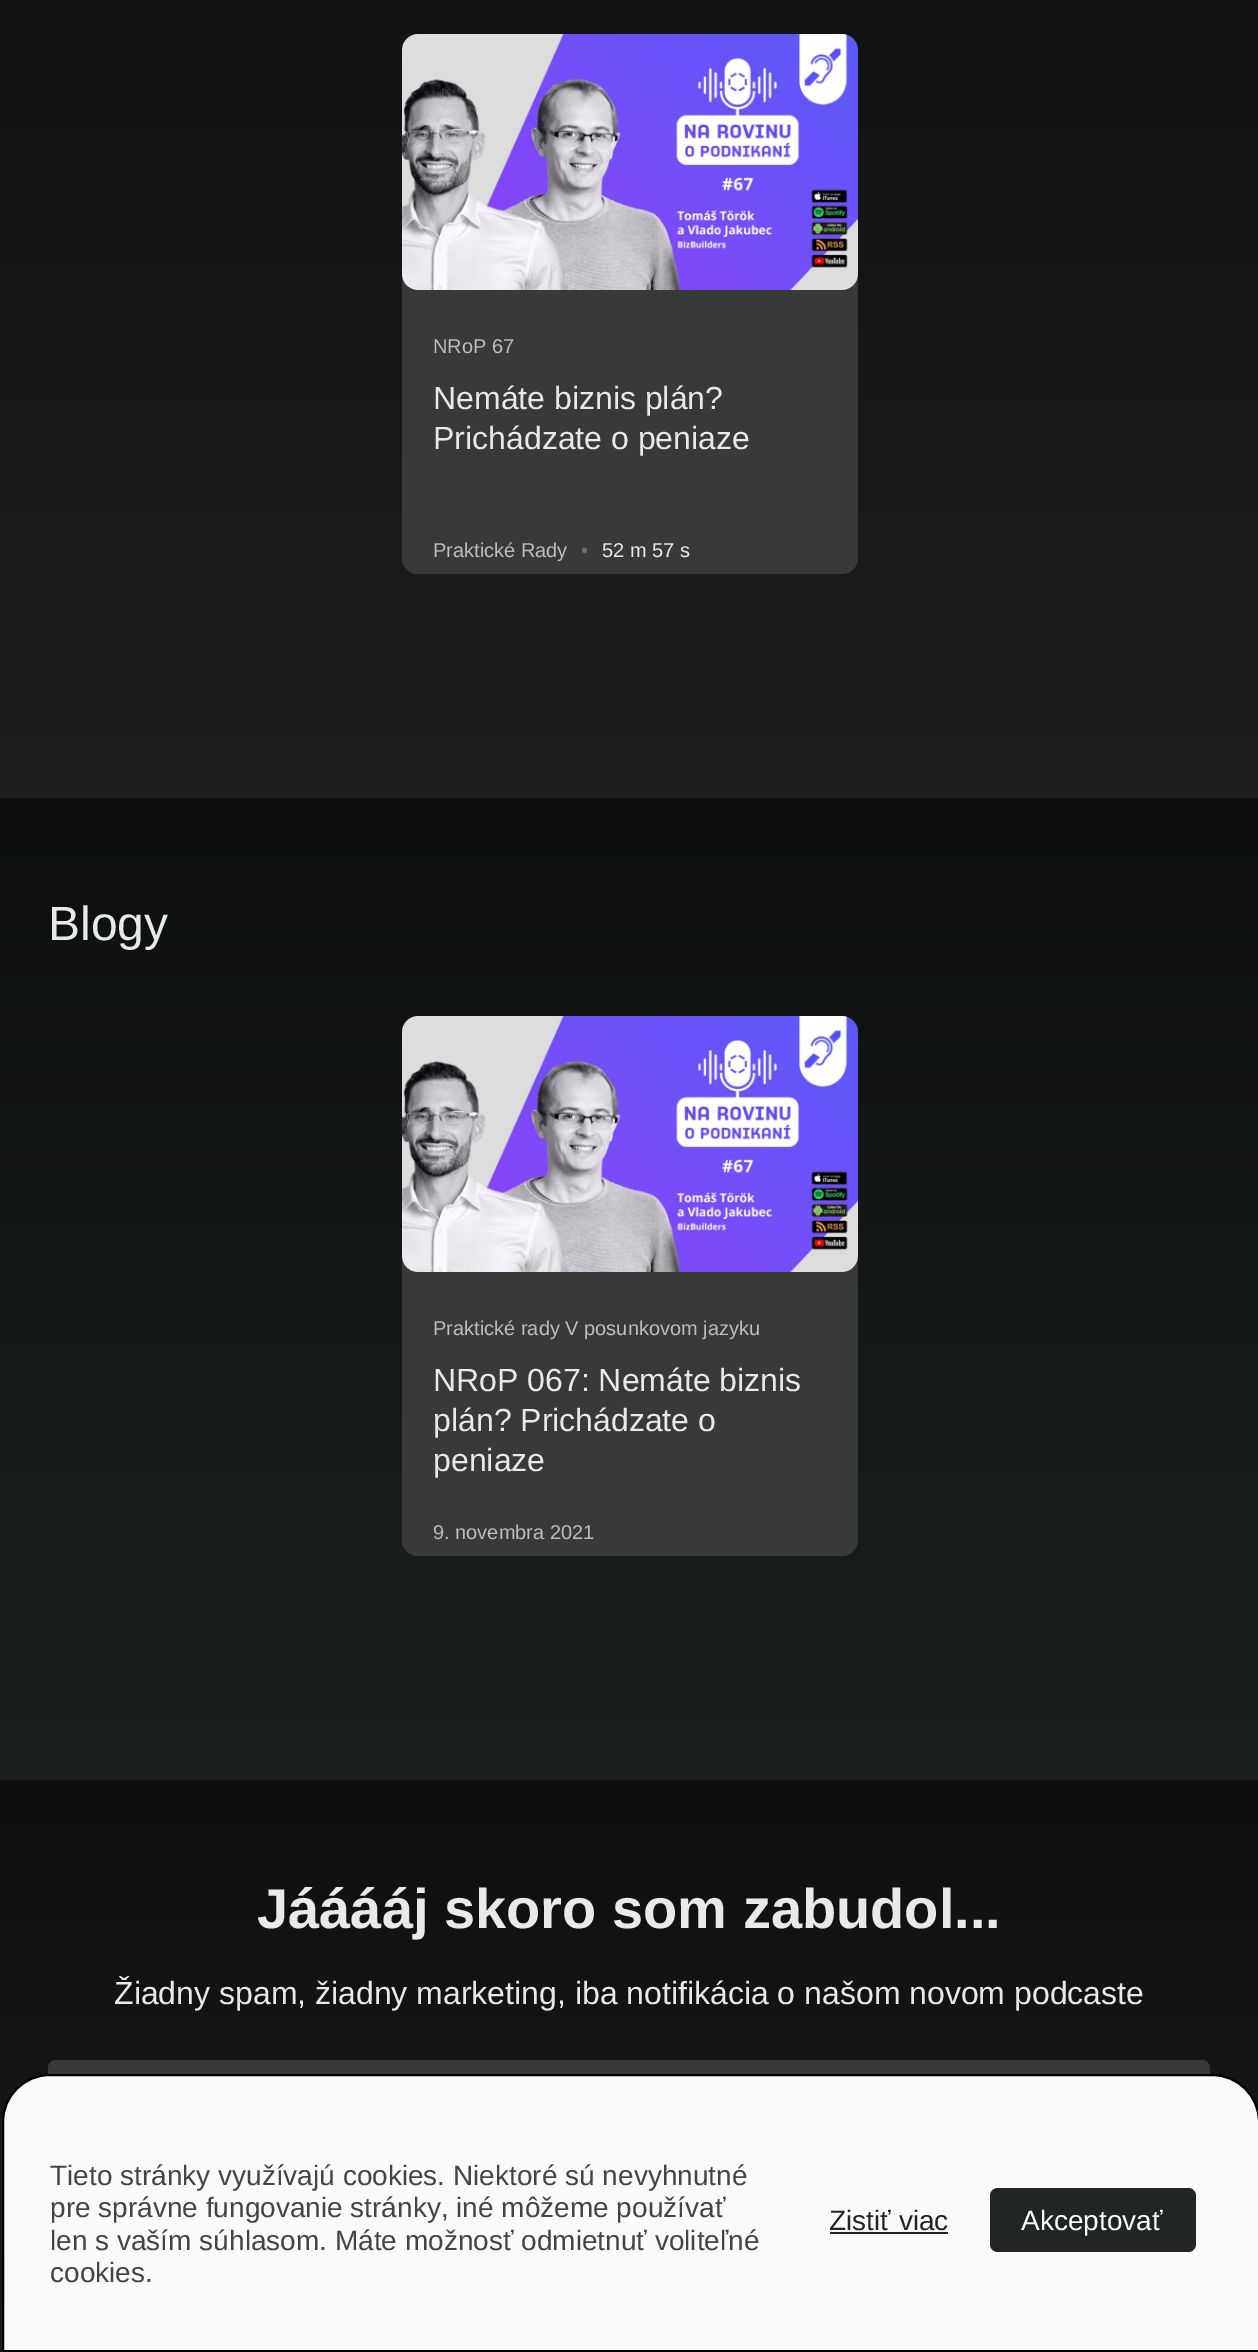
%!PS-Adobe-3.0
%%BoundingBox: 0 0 1258 2352
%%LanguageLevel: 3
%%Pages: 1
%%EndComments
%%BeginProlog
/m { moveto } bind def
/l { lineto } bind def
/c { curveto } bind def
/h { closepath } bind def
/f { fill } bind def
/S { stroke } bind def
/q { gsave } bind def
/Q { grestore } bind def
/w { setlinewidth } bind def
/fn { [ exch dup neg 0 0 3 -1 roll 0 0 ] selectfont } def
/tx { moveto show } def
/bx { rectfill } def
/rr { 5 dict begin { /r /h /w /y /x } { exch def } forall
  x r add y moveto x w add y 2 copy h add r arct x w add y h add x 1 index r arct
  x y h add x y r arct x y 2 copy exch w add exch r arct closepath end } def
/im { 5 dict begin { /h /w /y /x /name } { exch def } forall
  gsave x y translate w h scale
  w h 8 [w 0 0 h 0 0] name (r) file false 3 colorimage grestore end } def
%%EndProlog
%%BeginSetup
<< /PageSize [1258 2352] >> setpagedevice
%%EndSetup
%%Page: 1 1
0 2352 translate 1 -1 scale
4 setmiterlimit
1 setgray
0 0 1258 2352 bx
q 0 0 m 1258 0 l 1258 798 l 0 798 l h clip newpath
<< /ShadingType 2 /ColorSpace /DeviceRGB /Coords [629 -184 629 798] /Extend [true true] /Function << /FunctionType 2 /Domain [0 1] /C0 [0.055 0.063 0.063] /C1 [0.114 0.122 0.125] /N 1 >> >> shfill Q
0.22 0.227 0.227 setrgbcolor
402 34 456 540 16 rr f
(image0.raw) 402 34 456 256 im
/LiberationSans-Regular 20 fn
0.737 0.741 0.741 setrgbcolor
(NRoP 67) 433 353 tx
/LiberationSans-Regular 32 fn
0.91 0.914 0.914 setrgbcolor
(Nemáte biznis plán?) 433 409 tx
(Prichádzate o peniaze) 433 449 tx
/LiberationSans-Regular 20 fn
0.737 0.741 0.741 setrgbcolor
(Praktické Rady) 433 557 tx
0.427 0.435 0.439 setrgbcolor
(•) 581 557 tx
0.91 0.914 0.914 setrgbcolor
(52 m 57 s) 602 557 tx
q 0 798 m 1258 798 l 1258 1780 l 0 1780 l h clip newpath
<< /ShadingType 2 /ColorSpace /DeviceRGB /Coords [629 798 629 1780] /Extend [true true] /Function << /FunctionType 2 /Domain [0 1] /C0 [0.055 0.063 0.063] /C1 [0.11 0.125 0.125] /N 1 >> >> shfill Q
/LiberationSans-Regular 48 fn
(Blogy) 48 940 tx
0.22 0.227 0.227 setrgbcolor
402 1016 456 540 16 rr f
(image1.raw) 402 1016 456 256 im
/LiberationSans-Regular 20 fn
0.737 0.741 0.741 setrgbcolor
(Praktické rady V posunkovom jazyku) 433 1335 tx
/LiberationSans-Regular 32 fn
0.91 0.914 0.914 setrgbcolor
(NRoP 067: Nemáte biznis) 433 1391 tx
(plán? Prichádzate o) 433 1431 tx
(peniaze) 433 1471 tx
/LiberationSans-Regular 20 fn
0.737 0.741 0.741 setrgbcolor
(9. novembra 2021) 433 1539 tx
q 0 1780 m 1258 1780 l 1258 2352 l 0 2352 l h clip newpath
<< /ShadingType 2 /ColorSpace /DeviceRGB /Coords [629 1780 629 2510] /Extend [true true] /Function << /FunctionType 2 /Domain [0 1] /C0 [0.055 0.063 0.063] /C1 [0.114 0.122 0.125] /N 1 >> >> shfill Q
/LiberationSans-Bold 56 fn
0.91 0.914 0.914 setrgbcolor
(Jááááj skoro som zabudol...) 257 1928 tx
/LiberationSans-Regular 32 fn
(Žiadny spam, žiadny marketing, iba notifikácia o našom novom podcaste) 114 2004 tx
0.22 0.227 0.227 setrgbcolor
48 2060 1162 88 8 rr f
0.98 setgray
50 2075 m 1212 2075 l 1238 2075 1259 2096 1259 2122 c 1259 2351 l 3 2351 l 3 2122 l 3 2096 24 2075 50 2075 c h q f Q
0 setgray
2 w
S
/LiberationSans-Regular 28 fn
0.267 setgray
(Tieto stránky využívajú cookies. Niektoré sú nevyhnutné) 50 2185 tx
(pre správne fungovanie stránky, iné môžeme používať) 50 2217 tx
(len s vaším súhlasom. Máte možnosť odmietnuť voliteľné) 50 2250 tx
(cookies.) 50 2282 tx
0.129 0.145 0.149 setrgbcolor
(Zistiť viac) 829 2230 tx
830 2232 118 2 bx
990 2188 206 64 8 rr f
1 setgray
(Akceptovať) 1021 2230 tx
showpage
%%EOF
